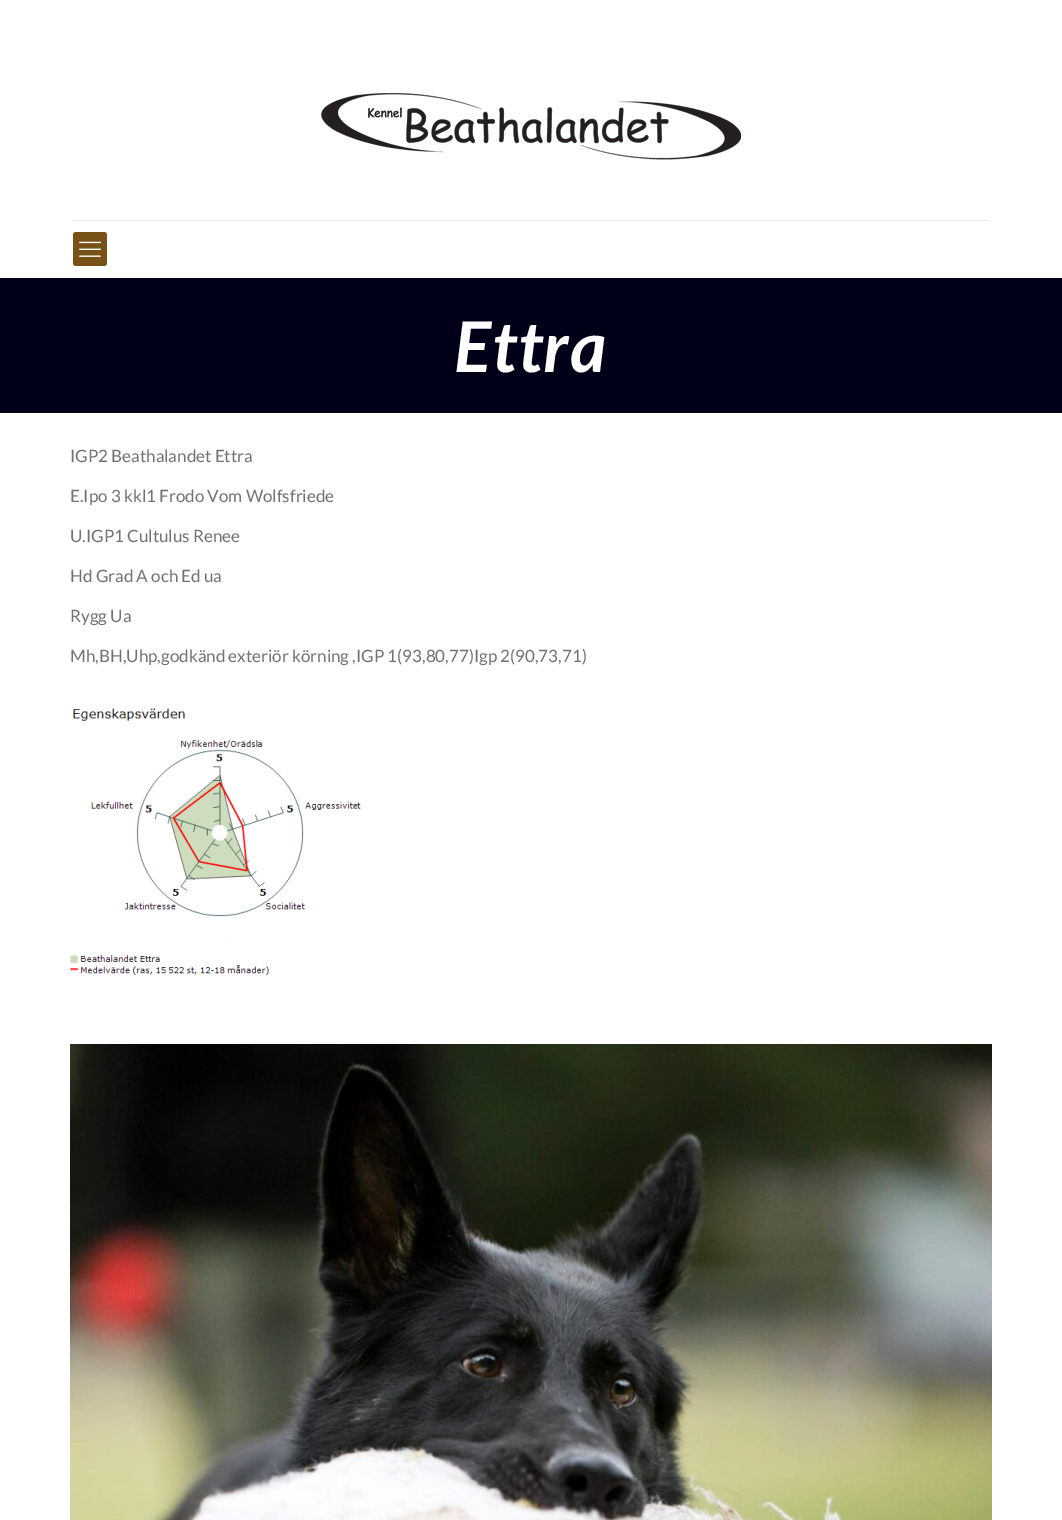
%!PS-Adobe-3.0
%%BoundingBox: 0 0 1062 1520
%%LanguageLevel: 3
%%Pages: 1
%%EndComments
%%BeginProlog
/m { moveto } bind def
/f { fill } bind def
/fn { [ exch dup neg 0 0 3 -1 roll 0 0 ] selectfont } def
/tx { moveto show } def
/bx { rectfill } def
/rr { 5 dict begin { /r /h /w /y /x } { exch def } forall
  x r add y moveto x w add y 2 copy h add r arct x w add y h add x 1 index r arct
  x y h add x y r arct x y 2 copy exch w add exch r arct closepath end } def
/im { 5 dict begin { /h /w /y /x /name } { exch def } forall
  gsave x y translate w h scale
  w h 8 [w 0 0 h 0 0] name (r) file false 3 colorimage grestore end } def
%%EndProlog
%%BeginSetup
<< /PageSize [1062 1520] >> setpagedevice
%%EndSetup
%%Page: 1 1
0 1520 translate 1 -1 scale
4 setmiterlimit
1 setgray
0 0 1062 1520 bx
0 0.004 0.098 setrgbcolor
0 278 1062 135 bx
0.922 setgray
73 220 916 1 bx
(image0.raw) 321 93 420 67 im
0.471 0.318 0.086 setrgbcolor
73 232 34 34 3 rr f
(image1.raw) 79 241 22 16 im
/Lato-BoldItalic 70 fn
1 setgray
454 372 m 1 0 (Ettra) ashow
/Lato-Regular 17 fn
0.447 setgray
(IGP2 Beathalandet Ettra) 70 462 tx
(E.Ipo 3 kkl1 Frodo Vom Wolfsfriede) 70 502 tx
(U.IGP1 Cultulus Renee) 70 542 tx
(Hd Grad A och Ed ua) 70 582 tx
(Rygg Ua) 70 622 tx
(Mh,BH,Uhp,godkänd exteriör körning ,IGP 1\(93,80,77\)Igp 2\(90,73,71\)) 70 662 tx
(image2.raw) 70 708 291 267 im
(image3.raw) 70 1044 922 476 im
showpage
%%EOF
